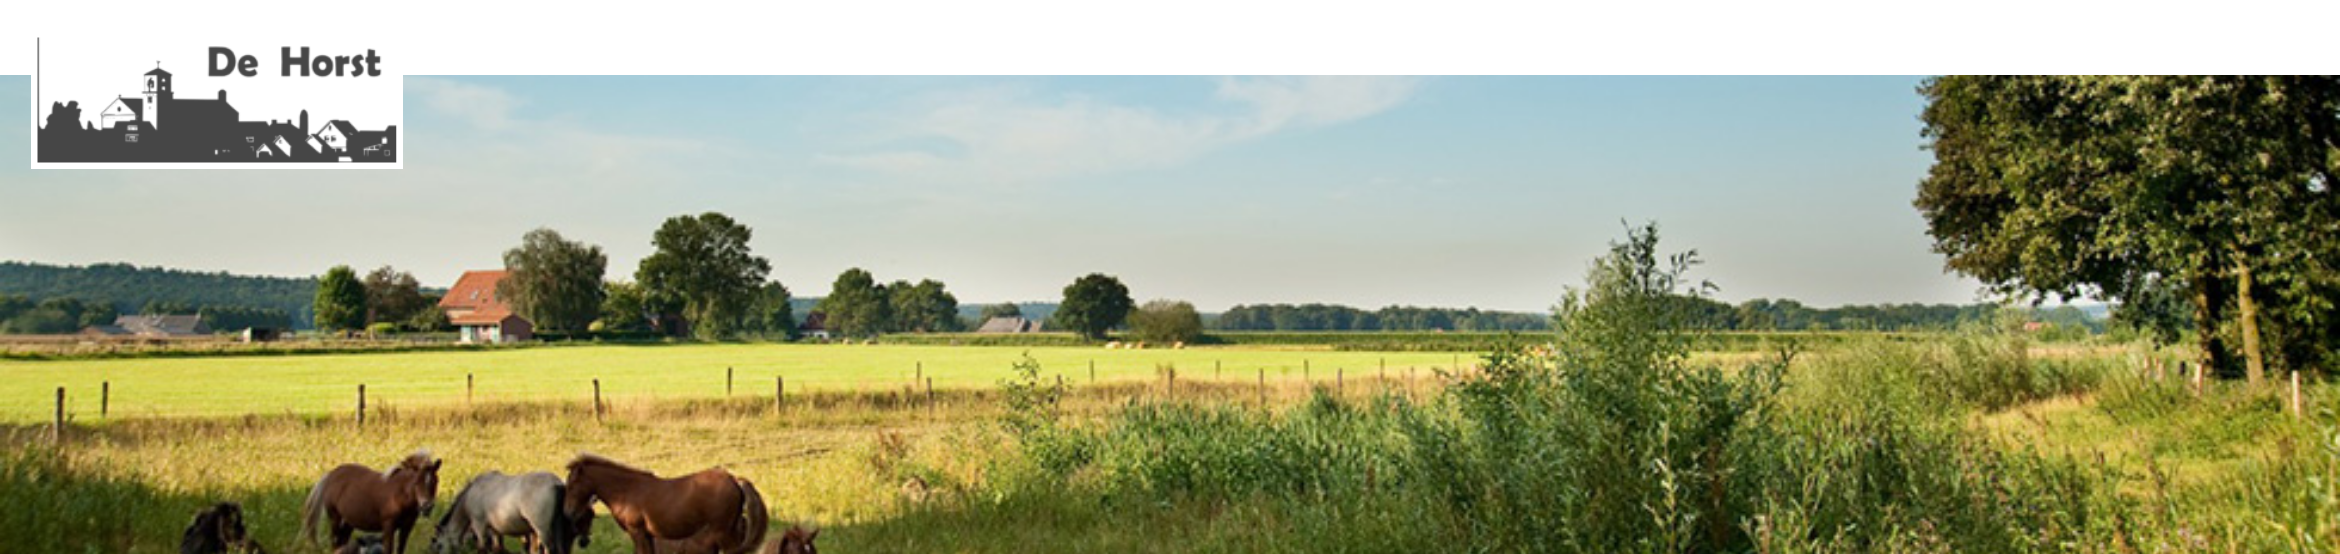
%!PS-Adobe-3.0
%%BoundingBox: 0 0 2340 554
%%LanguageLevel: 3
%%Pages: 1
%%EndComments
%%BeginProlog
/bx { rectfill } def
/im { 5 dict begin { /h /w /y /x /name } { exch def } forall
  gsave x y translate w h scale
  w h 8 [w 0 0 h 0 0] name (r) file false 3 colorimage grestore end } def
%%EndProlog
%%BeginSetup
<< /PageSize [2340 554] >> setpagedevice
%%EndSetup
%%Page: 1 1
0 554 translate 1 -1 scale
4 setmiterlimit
1 setgray
0 0 2340 554 bx
(image1.raw) 0 75 2340 479 im
31 75 372 94 bx
(image0.raw) 37 37 360 126 im
showpage
%%EOF
